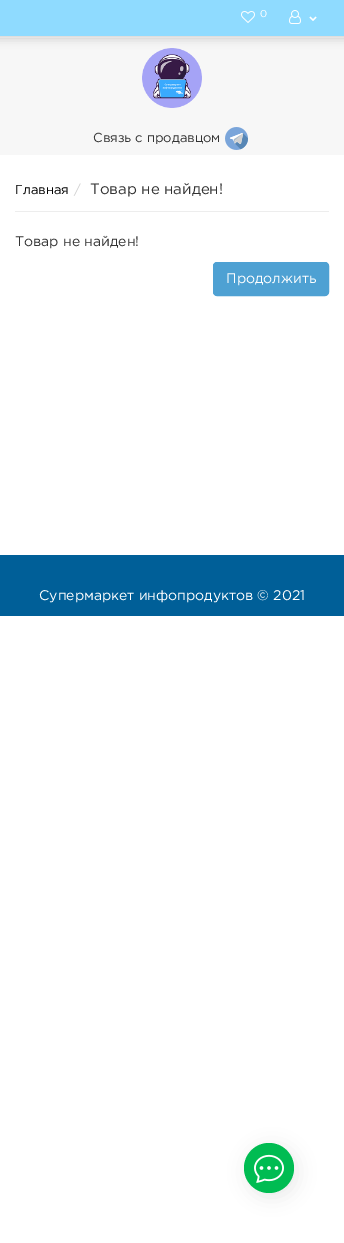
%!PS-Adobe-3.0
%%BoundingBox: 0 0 344 1243
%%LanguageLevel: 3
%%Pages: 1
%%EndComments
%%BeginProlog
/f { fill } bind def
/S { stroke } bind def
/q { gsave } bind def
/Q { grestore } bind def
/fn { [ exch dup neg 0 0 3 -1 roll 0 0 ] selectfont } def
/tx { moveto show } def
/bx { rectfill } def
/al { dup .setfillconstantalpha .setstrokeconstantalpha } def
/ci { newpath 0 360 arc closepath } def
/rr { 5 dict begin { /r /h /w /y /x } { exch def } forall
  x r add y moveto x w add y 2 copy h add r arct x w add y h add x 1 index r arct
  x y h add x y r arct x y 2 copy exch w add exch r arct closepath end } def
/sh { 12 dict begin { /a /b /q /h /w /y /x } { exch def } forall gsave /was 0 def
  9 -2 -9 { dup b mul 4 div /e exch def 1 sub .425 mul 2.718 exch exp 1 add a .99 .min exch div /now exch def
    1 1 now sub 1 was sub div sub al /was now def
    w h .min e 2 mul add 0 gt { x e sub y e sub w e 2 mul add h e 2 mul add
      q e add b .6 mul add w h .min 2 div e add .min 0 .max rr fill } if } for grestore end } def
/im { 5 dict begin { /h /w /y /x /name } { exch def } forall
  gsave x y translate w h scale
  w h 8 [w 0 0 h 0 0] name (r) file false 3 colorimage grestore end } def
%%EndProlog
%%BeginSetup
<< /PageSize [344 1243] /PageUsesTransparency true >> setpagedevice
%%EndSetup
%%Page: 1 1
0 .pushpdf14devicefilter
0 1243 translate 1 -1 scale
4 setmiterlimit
1 setgray
0 0 344 1243 bx
0.969 setgray
0 38 344 117 bx
(image3.raw) 142 48 60 60 im
0 setgray
-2 -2 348 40 0 5 0.2 sh
0.561 0.859 1 setrgbcolor
0 0 344 36 bx
(image0.raw) 241 11 14 12 im
/Gotham-Regular 10 fn
1 setgray
(0) 260 17 tx
(image1.raw) 289 10 12 14 im
(image2.raw) 309 16 8 5 im
/Gotham-Regular 13 fn
0.2 setgray
(Связь с продавцом) 93 142 tx
(image4.raw) 225 127 23 23 im
0.929 setgray
15 211 314 1 bx
0 setgray
(Главная) 15 194 tx
0.8 setgray
(/) 74 194 tx
/Gotham-Regular 15 fn
0.2 setgray
(Товар не найден!) 90 194 tx
/Gotham-Regular 14 fn
(Товар не найден!) 15 246 tx
0.306 0.631 0.827 setrgbcolor
213.5 262.5 115 33 3.5 rr q f Q
S
1 setgray
(Продолжить) 226 283 tx
0 0.373 0.596 setrgbcolor
0 555 344 61 bx
1 setgray
(Супермаркет инфопродуктов © 2021) 39 600 tx
0 setgray
247 1147 50 50 25 9 0.08 sh
0 0.737 0.322 setrgbcolor
269 1168 25 ci f
(image5.raw) 254 1154 30 29 im
.poppdf14devicefilter showpage
%%EOF
